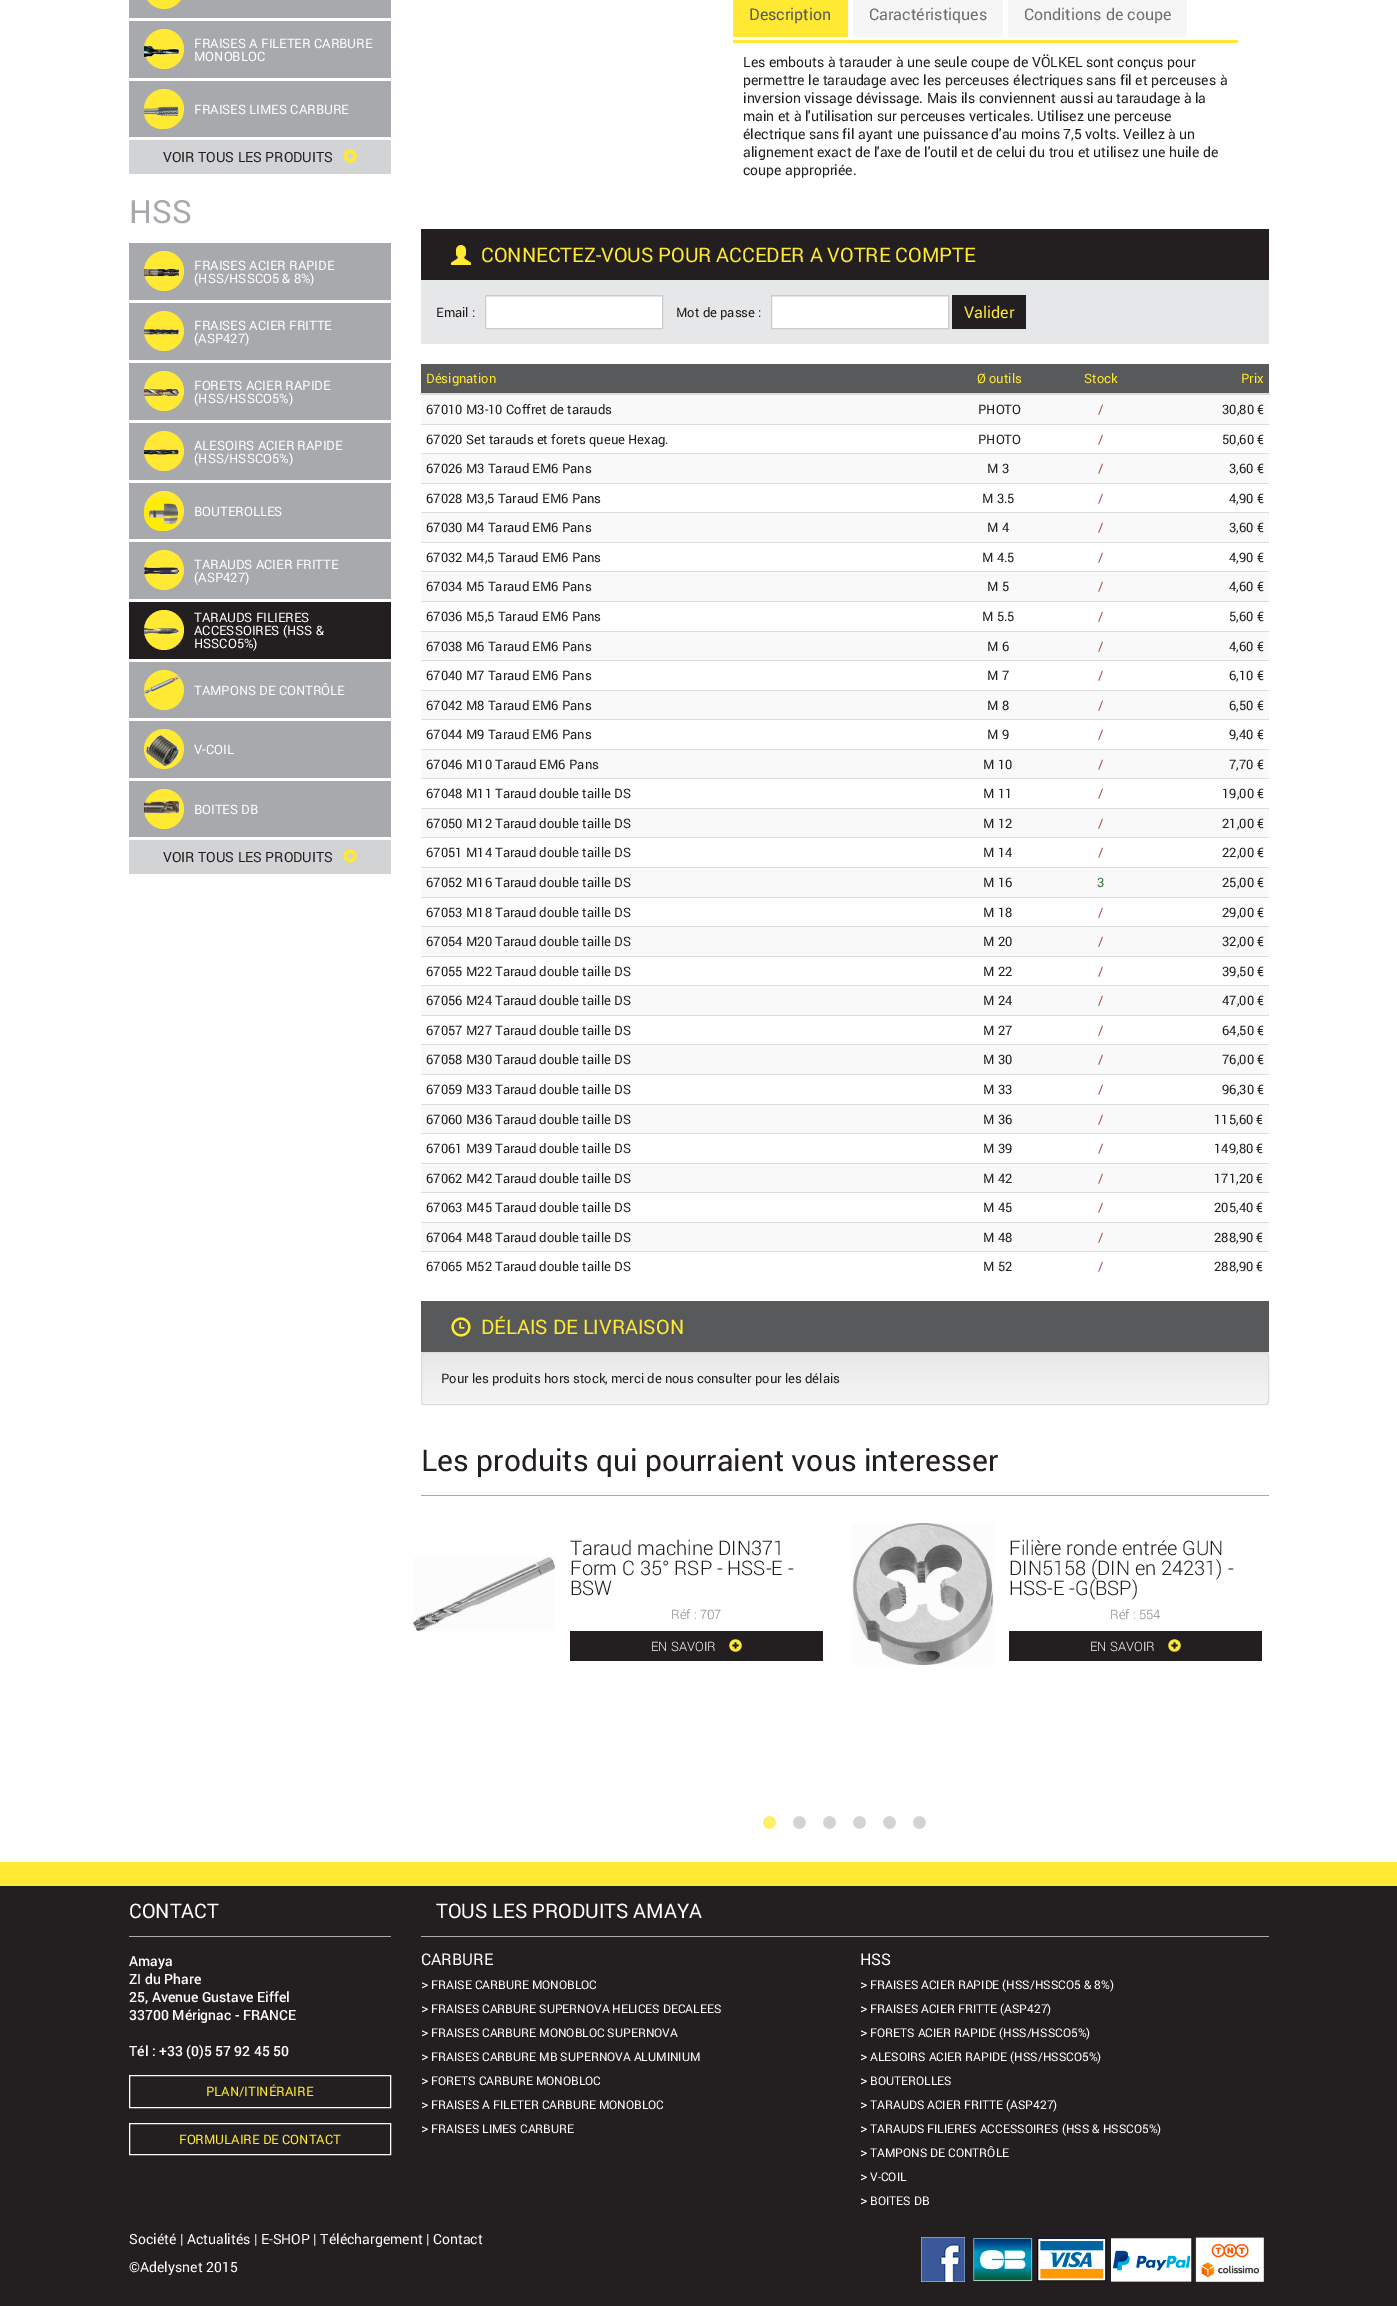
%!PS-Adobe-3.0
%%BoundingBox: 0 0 1397 2306
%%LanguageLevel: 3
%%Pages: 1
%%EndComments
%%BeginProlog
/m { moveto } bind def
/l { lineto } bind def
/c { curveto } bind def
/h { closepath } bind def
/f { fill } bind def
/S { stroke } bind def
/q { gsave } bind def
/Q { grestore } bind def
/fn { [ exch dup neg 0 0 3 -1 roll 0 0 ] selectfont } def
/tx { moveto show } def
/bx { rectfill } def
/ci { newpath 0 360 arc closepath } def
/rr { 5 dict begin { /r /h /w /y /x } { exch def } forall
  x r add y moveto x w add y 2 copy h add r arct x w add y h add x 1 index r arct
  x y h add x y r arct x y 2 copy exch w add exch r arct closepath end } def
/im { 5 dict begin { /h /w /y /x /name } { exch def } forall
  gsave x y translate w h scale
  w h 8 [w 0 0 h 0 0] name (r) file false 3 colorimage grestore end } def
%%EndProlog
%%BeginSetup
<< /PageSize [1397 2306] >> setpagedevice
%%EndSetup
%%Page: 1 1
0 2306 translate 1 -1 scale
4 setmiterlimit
1 setgray
0 0 1397 2306 bx
0.655 0.663 0.675 setrgbcolor
129 0 262 18 bx
1 0.914 0.2 setrgbcolor
144 -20 40 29 20 rr f
0.655 0.663 0.675 setrgbcolor
129 21 262 57 bx
1 0.914 0.2 setrgbcolor
164 49 20 ci f
(image0.raw) 144 45 35 13 im
/roboto-Regular 13 fn
1 setgray
(FRAISES A FILETER CARBURE) 194 48 tx
(MONOBLOC) 194 61 tx
0.655 0.663 0.675 setrgbcolor
129 81 262 56 bx
1 0.914 0.2 setrgbcolor
164 109 20 ci f
(image1.raw) 144 106 35 23 im
1 setgray
(FRAISES LIMES CARBURE) 194 114 tx
0.82 0.827 0.831 setrgbcolor
129 140 262 34 bx
/roboto-Regular 14 fn
0.137 0.122 0.125 setrgbcolor
(VOIR TOUS LES PRODUITS) 163 162 tx
(image2.raw) 343 149 14 14 im
/roboto-Regular 32 fn
0.655 0.663 0.675 setrgbcolor
(HSS) 129 223 tx
129 243 262 57 bx
1 0.914 0.2 setrgbcolor
164 271 20 ci f
(image3.raw) 144 268 35 9 im
/roboto-Regular 13 fn
1 setgray
(FRAISES ACIER RAPIDE) 194 270 tx
(\(HSS/HSSCO5 & 8%\)) 194 283 tx
0.655 0.663 0.675 setrgbcolor
129 303 262 57 bx
1 0.914 0.2 setrgbcolor
164 331 20 ci f
(image4.raw) 144 328 35 7 im
1 setgray
(FRAISES ACIER FRITTE) 194 330 tx
(\(ASP427\)) 194 343 tx
0.655 0.663 0.675 setrgbcolor
129 363 262 57 bx
1 0.914 0.2 setrgbcolor
164 391 20 ci f
(image5.raw) 144 388 35 9 im
1 setgray
(FORETS ACIER RAPIDE) 194 390 tx
(\(HSS/HSSCO5%\)) 194 403 tx
0.655 0.663 0.675 setrgbcolor
129 423 262 57 bx
1 0.914 0.2 setrgbcolor
164 451 20 ci f
(image6.raw) 144 449 35 6 im
1 setgray
(ALESOIRS ACIER RAPIDE) 194 450 tx
(\(HSS/HSSCO5%\)) 194 463 tx
0.655 0.663 0.675 setrgbcolor
129 483 262 56 bx
1 0.914 0.2 setrgbcolor
164 511 20 ci f
(image7.raw) 144 497 35 34 im
1 setgray
(BOUTEROLLES) 194 516 tx
0.655 0.663 0.675 setrgbcolor
129 542 262 57 bx
1 0.914 0.2 setrgbcolor
164 570 20 ci f
(image8.raw) 144 566 35 9 im
1 setgray
(TARAUDS ACIER FRITTE) 194 569 tx
(\(ASP427\)) 194 582 tx
0.137 0.122 0.125 setrgbcolor
129 602 262 57 bx
1 0.914 0.2 setrgbcolor
164 630 20 ci f
(image9.raw) 144 627 35 8 im
1 setgray
(TARAUDS FILIERES) 194 622 tx
(ACCESSOIRES \(HSS &) 194 635 tx
(HSSCO5%\)) 194 648 tx
0.655 0.663 0.675 setrgbcolor
129 662 262 56 bx
1 0.914 0.2 setrgbcolor
164 690 20 ci f
(image10.raw) 144 676 35 18 im
1 setgray
(TAMPONS DE CONTRÔLE) 194 695 tx
0.655 0.663 0.675 setrgbcolor
129 721 262 57 bx
1 0.914 0.2 setrgbcolor
164 749 20 ci f
(image11.raw) 146 735 33 32 im
1 setgray
(V-COIL) 194 754 tx
0.655 0.663 0.675 setrgbcolor
129 781 262 56 bx
1 0.914 0.2 setrgbcolor
164 809 20 ci f
(image12.raw) 144 800 35 15 im
1 setgray
(BOITES DB) 194 814 tx
0.82 0.827 0.831 setrgbcolor
129 840 262 34 bx
/roboto-Regular 14 fn
0.137 0.122 0.125 setrgbcolor
(VOIR TOUS LES PRODUITS) 163 862 tx
(image2.raw) 343 849 14 14 im
1 0.914 0.2 setrgbcolor
733 40 505 3 bx
733 0 115 37 bx
0.867 setgray
848 -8 m 848 37 l 847 36 l 847 -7 l h f
733 37 m 733 -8 l 734 -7 l 734 36 l h f
/roboto-Regular 16 fn
0.345 0.349 0.357 setrgbcolor
(Description) 749 20 tx
0.965 setgray
853 0 150 37 bx
0.439 0.435 0.435 setrgbcolor
(Caractéristiques) 869 20 tx
0.965 setgray
1008 0 179 37 bx
0.439 0.435 0.435 setrgbcolor
(Conditions de coupe) 1024 20 tx
/roboto-Regular 14 fn
0.137 0.122 0.125 setrgbcolor
(Les embouts à tarauder à une seule coupe de VÖLKEL sont conçus pour) 743 67 tx
(permettre le taraudage avec les perceuses électriques sans fil et perceuses à) 743 85 tx
(inversion vissage dévissage. Mais ils conviennent aussi au taraudage à la) 743 103 tx
(main et à l'utilisation sur perceuses verticales. Utilisez une perceuse) 743 121 tx
(électrique sans fil ayant une puissance d'au moins 7,5 volts. Veillez à un) 743 139 tx
(alignement exact de l'axe de l'outil et de celui du trou et utilisez une huile de) 743 157 tx
(coupe appropriée.) 743 175 tx
0.902 0.906 0.91 setrgbcolor
421 280 848 64 bx
0.137 0.122 0.125 setrgbcolor
421 229 848 51 bx
(image13.raw) 451 245 20 20 im
/roboto-Regular 20 fn
1 0.914 0.2 setrgbcolor
(CONNECTEZ-VOUS POUR ACCEDER A VOTRE COMPTE) 481 262 tx
/roboto-Regular 13 fn
0.137 0.122 0.125 setrgbcolor
(Email :) 436 317 tx
1 setgray
486 297 176 31 bx
0.925 setgray
486 296 176 1 bx
0.8 setgray
485.5 295.5 177 33 rectstroke
0.137 0.122 0.125 setrgbcolor
(Mot de passe :) 676 317 tx
1 setgray
772 297 176 31 bx
0.925 setgray
772 296 176 1 bx
0.8 setgray
771.5 295.5 177 33 rectstroke
0.137 0.122 0.125 setrgbcolor
952 295 74 34 bx
/roboto-Regular 16 fn
1 0.914 0.2 setrgbcolor
(Valider) 964 318 tx
0.345 0.349 0.357 setrgbcolor
421 364 848 29 bx
/roboto-Regular 13 fn
1 0.914 0.2 setrgbcolor
(Désignation) 426 383 tx
(Ø outils) 977 383 tx
(Stock) 1084 383 tx
0.867 setgray
420 393 850 2 bx
1 0.914 0.2 setrgbcolor
(Prix) 1241 383 tx
0.976 setgray
421 395 848 29 bx
0.137 0.122 0.125 setrgbcolor
(67010 M3-10 Coffret de tarauds) 426 414 tx
(PHOTO) 978 414 tx
0.663 0.267 0.259 setrgbcolor
(/) 1098 414 tx
0.137 0.122 0.125 setrgbcolor
(30,80 €) 1222 414 tx
(67020 Set tarauds et forets queue Hexag.) 426 444 tx
(PHOTO) 978 444 tx
0.663 0.267 0.259 setrgbcolor
(/) 1098 444 tx
0.867 setgray
421 424 848 1 bx
0.137 0.122 0.125 setrgbcolor
(50,60 €) 1222 444 tx
0.976 setgray
421 454 848 29 bx
0.137 0.122 0.125 setrgbcolor
(67026 M3 Taraud EM6 Pans) 426 473 tx
(M 3) 987 473 tx
0.663 0.267 0.259 setrgbcolor
(/) 1098 473 tx
0.867 setgray
421 453 848 1 bx
0.137 0.122 0.125 setrgbcolor
(3,60 €) 1229 473 tx
(67028 M3,5 Taraud EM6 Pans) 426 503 tx
(M 3.5) 982 503 tx
0.663 0.267 0.259 setrgbcolor
(/) 1098 503 tx
0.867 setgray
421 483 848 1 bx
0.137 0.122 0.125 setrgbcolor
(4,90 €) 1229 503 tx
0.976 setgray
421 513 848 29 bx
0.137 0.122 0.125 setrgbcolor
(67030 M4 Taraud EM6 Pans) 426 532 tx
(M 4) 987 532 tx
0.663 0.267 0.259 setrgbcolor
(/) 1098 532 tx
0.867 setgray
421 512 848 1 bx
0.137 0.122 0.125 setrgbcolor
(3,60 €) 1229 532 tx
(67032 M4,5 Taraud EM6 Pans) 426 562 tx
(M 4.5) 982 562 tx
0.663 0.267 0.259 setrgbcolor
(/) 1098 562 tx
0.867 setgray
421 542 848 1 bx
0.137 0.122 0.125 setrgbcolor
(4,90 €) 1229 562 tx
0.976 setgray
421 572 848 29 bx
0.137 0.122 0.125 setrgbcolor
(67034 M5 Taraud EM6 Pans) 426 591 tx
(M 5) 987 591 tx
0.663 0.267 0.259 setrgbcolor
(/) 1098 591 tx
0.867 setgray
421 571 848 1 bx
0.137 0.122 0.125 setrgbcolor
(4,60 €) 1229 591 tx
(67036 M5,5 Taraud EM6 Pans) 426 621 tx
(M 5.5) 982 621 tx
0.663 0.267 0.259 setrgbcolor
(/) 1098 621 tx
0.867 setgray
421 601 848 1 bx
0.137 0.122 0.125 setrgbcolor
(5,60 €) 1229 621 tx
0.976 setgray
421 632 848 28 bx
0.137 0.122 0.125 setrgbcolor
(67038 M6 Taraud EM6 Pans) 426 651 tx
(M 6) 987 651 tx
0.663 0.267 0.259 setrgbcolor
(/) 1098 651 tx
0.867 setgray
421 631 848 1 bx
0.137 0.122 0.125 setrgbcolor
(4,60 €) 1229 651 tx
(67040 M7 Taraud EM6 Pans) 426 680 tx
(M 7) 987 680 tx
0.663 0.267 0.259 setrgbcolor
(/) 1098 680 tx
0.867 setgray
421 660 848 1 bx
0.137 0.122 0.125 setrgbcolor
(6,10 €) 1229 680 tx
0.976 setgray
421 691 848 28 bx
0.137 0.122 0.125 setrgbcolor
(67042 M8 Taraud EM6 Pans) 426 710 tx
(M 8) 987 710 tx
0.663 0.267 0.259 setrgbcolor
(/) 1098 710 tx
0.867 setgray
421 690 848 1 bx
0.137 0.122 0.125 setrgbcolor
(6,50 €) 1229 710 tx
(67044 M9 Taraud EM6 Pans) 426 739 tx
(M 9) 987 739 tx
0.663 0.267 0.259 setrgbcolor
(/) 1098 739 tx
0.867 setgray
421 719 848 1 bx
0.137 0.122 0.125 setrgbcolor
(9,40 €) 1229 739 tx
0.976 setgray
421 750 848 28 bx
0.137 0.122 0.125 setrgbcolor
(67046 M10 Taraud EM6 Pans) 426 769 tx
(M 10) 983 769 tx
0.663 0.267 0.259 setrgbcolor
(/) 1098 769 tx
0.867 setgray
421 749 848 1 bx
0.137 0.122 0.125 setrgbcolor
(7,70 €) 1229 769 tx
(67048 M11 Taraud double taille DS) 426 798 tx
(M 11) 983 798 tx
0.663 0.267 0.259 setrgbcolor
(/) 1098 798 tx
0.867 setgray
421 778 848 1 bx
0.137 0.122 0.125 setrgbcolor
(19,00 €) 1222 798 tx
0.976 setgray
421 809 848 28 bx
0.137 0.122 0.125 setrgbcolor
(67050 M12 Taraud double taille DS) 426 828 tx
(M 12) 983 828 tx
0.663 0.267 0.259 setrgbcolor
(/) 1098 828 tx
0.867 setgray
421 808 848 1 bx
0.137 0.122 0.125 setrgbcolor
(21,00 €) 1222 828 tx
(67051 M14 Taraud double taille DS) 426 857 tx
(M 14) 983 857 tx
0.663 0.267 0.259 setrgbcolor
(/) 1098 857 tx
0.867 setgray
421 837 848 1 bx
0.137 0.122 0.125 setrgbcolor
(22,00 €) 1222 857 tx
0.976 setgray
421 868 848 29 bx
0.137 0.122 0.125 setrgbcolor
(67052 M16 Taraud double taille DS) 426 887 tx
(M 16) 983 887 tx
0.235 0.463 0.239 setrgbcolor
(3) 1097 887 tx
0.867 setgray
421 867 848 1 bx
0.137 0.122 0.125 setrgbcolor
(25,00 €) 1222 887 tx
(67053 M18 Taraud double taille DS) 426 917 tx
(M 18) 983 917 tx
0.663 0.267 0.259 setrgbcolor
(/) 1098 917 tx
0.867 setgray
421 897 848 1 bx
0.137 0.122 0.125 setrgbcolor
(29,00 €) 1222 917 tx
0.976 setgray
421 927 848 29 bx
0.137 0.122 0.125 setrgbcolor
(67054 M20 Taraud double taille DS) 426 946 tx
(M 20) 983 946 tx
0.663 0.267 0.259 setrgbcolor
(/) 1098 946 tx
0.867 setgray
421 926 848 1 bx
0.137 0.122 0.125 setrgbcolor
(32,00 €) 1222 946 tx
(67055 M22 Taraud double taille DS) 426 976 tx
(M 22) 983 976 tx
0.663 0.267 0.259 setrgbcolor
(/) 1098 976 tx
0.867 setgray
421 956 848 1 bx
0.137 0.122 0.125 setrgbcolor
(39,50 €) 1222 976 tx
0.976 setgray
421 986 848 29 bx
0.137 0.122 0.125 setrgbcolor
(67056 M24 Taraud double taille DS) 426 1005 tx
(M 24) 983 1005 tx
0.663 0.267 0.259 setrgbcolor
(/) 1098 1005 tx
0.867 setgray
421 985 848 1 bx
0.137 0.122 0.125 setrgbcolor
(47,00 €) 1222 1005 tx
(67057 M27 Taraud double taille DS) 426 1035 tx
(M 27) 983 1035 tx
0.663 0.267 0.259 setrgbcolor
(/) 1098 1035 tx
0.867 setgray
421 1015 848 1 bx
0.137 0.122 0.125 setrgbcolor
(64,50 €) 1222 1035 tx
0.976 setgray
421 1045 848 29 bx
0.137 0.122 0.125 setrgbcolor
(67058 M30 Taraud double taille DS) 426 1064 tx
(M 30) 983 1064 tx
0.663 0.267 0.259 setrgbcolor
(/) 1098 1064 tx
0.867 setgray
421 1044 848 1 bx
0.137 0.122 0.125 setrgbcolor
(76,00 €) 1222 1064 tx
(67059 M33 Taraud double taille DS) 426 1094 tx
(M 33) 983 1094 tx
0.663 0.267 0.259 setrgbcolor
(/) 1098 1094 tx
0.867 setgray
421 1074 848 1 bx
0.137 0.122 0.125 setrgbcolor
(96,30 €) 1222 1094 tx
0.976 setgray
421 1105 848 28 bx
0.137 0.122 0.125 setrgbcolor
(67060 M36 Taraud double taille DS) 426 1124 tx
(M 36) 983 1124 tx
0.663 0.267 0.259 setrgbcolor
(/) 1098 1124 tx
0.867 setgray
421 1104 848 1 bx
0.137 0.122 0.125 setrgbcolor
(115,60 €) 1214 1124 tx
(67061 M39 Taraud double taille DS) 426 1153 tx
(M 39) 983 1153 tx
0.663 0.267 0.259 setrgbcolor
(/) 1098 1153 tx
0.867 setgray
421 1133 848 1 bx
0.137 0.122 0.125 setrgbcolor
(149,80 €) 1214 1153 tx
0.976 setgray
421 1164 848 28 bx
0.137 0.122 0.125 setrgbcolor
(67062 M42 Taraud double taille DS) 426 1183 tx
(M 42) 983 1183 tx
0.663 0.267 0.259 setrgbcolor
(/) 1098 1183 tx
0.867 setgray
421 1163 848 1 bx
0.137 0.122 0.125 setrgbcolor
(171,20 €) 1214 1183 tx
(67063 M45 Taraud double taille DS) 426 1212 tx
(M 45) 983 1212 tx
0.663 0.267 0.259 setrgbcolor
(/) 1098 1212 tx
0.867 setgray
421 1192 848 1 bx
0.137 0.122 0.125 setrgbcolor
(205,40 €) 1214 1212 tx
0.976 setgray
421 1223 848 28 bx
0.137 0.122 0.125 setrgbcolor
(67064 M48 Taraud double taille DS) 426 1242 tx
(M 48) 983 1242 tx
0.663 0.267 0.259 setrgbcolor
(/) 1098 1242 tx
0.867 setgray
421 1222 848 1 bx
0.137 0.122 0.125 setrgbcolor
(288,90 €) 1214 1242 tx
(67065 M52 Taraud double taille DS) 426 1271 tx
(M 52) 983 1271 tx
0.663 0.267 0.259 setrgbcolor
(/) 1098 1271 tx
0.867 setgray
421 1251 848 1 bx
0.137 0.122 0.125 setrgbcolor
(288,90 €) 1214 1271 tx
0.902 0.906 0.91 setrgbcolor
421 1352 848 53 bx
0.345 0.349 0.357 setrgbcolor
421 1301 848 51 bx
(image14.raw) 451 1317 20 20 im
/roboto-Regular 20 fn
1 0.914 0.2 setrgbcolor
(DÉLAIS DE LIVRAISON) 481 1334 tx
q
421 1301 848 104 rectclip
0.914 0.914 0.918 setrgbcolor
421 1401 m 421 1404 422 1406 425 1406 c 1265 1406 l 1268 1406 1269 1404 1269 1401 c 1269 1403 1267 1405 1265 1405 c 425 1405 l 423 1405 421 1403 421 1401 c h f
Q
q
421 1352 848 53 4 rr clip newpath
q 421 1353 m 1269 1353 l 1269 1404 l 421 1404 l h clip newpath
<< /ShadingType 2 /ColorSpace /DeviceRGB /Coords [845 1353 845 1404] /Extend [true true] /Function << /FunctionType 2 /Domain [0 1] /C0 [0.91 0.91 0.91] /C1 [0.961 0.961 0.961] /N 1 >> >> shfill Q
Q
0.863 setgray
421.5 1352.5 847 52 3.5 rr S
/roboto-Regular 13 fn
0.137 0.122 0.125 setrgbcolor
(Pour les produits hors stock, merci de nous consulter pour les délais) 441 1383 tx
0.655 0.663 0.675 setrgbcolor
421 1495 848 1 bx
/roboto-Regular 30 fn
0.137 0.122 0.125 setrgbcolor
(Les produits qui pourraient vous interesser) 421 1471 tx
(image15.raw) 413 1557 142 74 im
/Roboto-Light 20 fn
(Taraud machine DIN371) 570 1555 tx
(Form C 35° RSP - HSS-E -) 570 1575 tx
(BSW) 570 1595 tx
/Roboto-Light 13 fn
0.529 setgray
(Réf : 707) 671 1619 tx
0.137 0.122 0.125 setrgbcolor
570 1631 253 30 bx
1 setgray
(EN SAVOIR) 651 1651 tx
(image16.raw) 729 1639 13 13 im
(image17.raw) 852 1523 142 142 im
/Roboto-Light 20 fn
0.137 0.122 0.125 setrgbcolor
(Filière ronde entrée GUN) 1009 1555 tx
(DIN5158 \(DIN en 24231\) -) 1009 1575 tx
(HSS-E -G\(BSP\)) 1009 1595 tx
/Roboto-Light 13 fn
0.529 setgray
(Réf : 554) 1110 1619 tx
0.137 0.122 0.125 setrgbcolor
1009 1631 253 30 bx
1 setgray
(EN SAVOIR) 1090 1651 tx
(image16.raw) 1168 1639 13 13 im
(image18.raw) 763 1816 13 13 im
(image19.raw) 793 1816 13 13 im
(image19.raw) 823 1816 13 13 im
(image19.raw) 853 1816 13 13 im
(image19.raw) 883 1816 13 13 im
(image19.raw) 913 1816 13 13 im
1 0.914 0.2 setrgbcolor
0 1862 1397 24 bx
0.137 0.122 0.125 setrgbcolor
0 1886 1397 420 bx
0.655 0.663 0.675 setrgbcolor
129 1936 262 1 bx
/roboto-Regular 20 fn
1 setgray
(CONTACT) 129 1918 tx
/Roboto-Medium 14 fn
(Amaya) 129 1966 tx
(ZI du Phare) 129 1984 tx
(25, Avenue Gustave Eiffel) 129 2002 tx
(33700 Mérignac - FRANCE) 129 2020 tx
(Tél : +33 \(0\)5 57 92 45 50) 129 2056 tx
129.5 2075.5 261 32 rectstroke
/roboto-Regular 13 fn
1 0.914 0.2 setrgbcolor
(PLAN/ITINÉRAIRE) 206 2096 tx
1 setgray
129.5 2123.5 261 31 rectstroke
1 0.914 0.2 setrgbcolor
(FORMULAIRE DE CONTACT) 179 2144 tx
0.655 0.663 0.675 setrgbcolor
421 1936 848 1 bx
/roboto-Regular 20 fn
1 setgray
(TOUS LES PRODUITS AMAYA) 436 1918 tx
/roboto-Regular 16 fn
(CARBURE) 421 1965 tx
/roboto-Regular 14 fn
(>) 421 1989 tx
/roboto-Regular 12 fn
(FRAISE CARBURE MONOBLOC) 431 1989 tx
/roboto-Regular 14 fn
(>) 421 2013 tx
/roboto-Regular 12 fn
(FRAISES CARBURE SUPERNOVA HELICES DECALEES) 431 2013 tx
/roboto-Regular 14 fn
(>) 421 2037 tx
/roboto-Regular 12 fn
(FRAISES CARBURE MONOBLOC SUPERNOVA) 431 2037 tx
/roboto-Regular 14 fn
(>) 421 2061 tx
/roboto-Regular 12 fn
(FRAISES CARBURE MB SUPERNOVA ALUMINIUM) 431 2061 tx
/roboto-Regular 14 fn
(>) 421 2085 tx
/roboto-Regular 12 fn
(FORETS CARBURE MONOBLOC) 431 2085 tx
/roboto-Regular 14 fn
(>) 421 2109 tx
/roboto-Regular 12 fn
(FRAISES A FILETER CARBURE MONOBLOC) 431 2109 tx
/roboto-Regular 14 fn
(>) 421 2133 tx
/roboto-Regular 12 fn
(FRAISES LIMES CARBURE) 431 2133 tx
/roboto-Regular 16 fn
(HSS) 860 1965 tx
/roboto-Regular 14 fn
(>) 860 1989 tx
/roboto-Regular 12 fn
(FRAISES ACIER RAPIDE \(HSS/HSSCO5 & 8%\)) 870 1989 tx
/roboto-Regular 14 fn
(>) 860 2013 tx
/roboto-Regular 12 fn
(FRAISES ACIER FRITTE \(ASP427\)) 870 2013 tx
/roboto-Regular 14 fn
(>) 860 2037 tx
/roboto-Regular 12 fn
(FORETS ACIER RAPIDE \(HSS/HSSCO5%\)) 870 2037 tx
/roboto-Regular 14 fn
(>) 860 2061 tx
/roboto-Regular 12 fn
(ALESOIRS ACIER RAPIDE \(HSS/HSSCO5%\)) 870 2061 tx
/roboto-Regular 14 fn
(>) 860 2085 tx
/roboto-Regular 12 fn
(BOUTEROLLES) 870 2085 tx
/roboto-Regular 14 fn
(>) 860 2109 tx
/roboto-Regular 12 fn
(TARAUDS ACIER FRITTE \(ASP427\)) 870 2109 tx
/roboto-Regular 14 fn
(>) 860 2133 tx
/roboto-Regular 12 fn
(TARAUDS FILIERES ACCESSOIRES \(HSS & HSSCO5%\)) 870 2133 tx
/roboto-Regular 14 fn
(>) 860 2157 tx
/roboto-Regular 12 fn
(TAMPONS DE CONTRÔLE) 870 2157 tx
/roboto-Regular 14 fn
(>) 860 2181 tx
/roboto-Regular 12 fn
(V-COIL) 870 2181 tx
/roboto-Regular 14 fn
(>) 860 2205 tx
/roboto-Regular 12 fn
(BOITES DB) 870 2205 tx
/roboto-Regular 14 fn
(Société | Actualités | E-SHOP | Téléchargement | Contact) 129 2244 tx
(©Adelysnet 2015) 129 2272 tx
(image20.raw) 921 2237 44 45 im
(image21.raw) 973 2237 291 45 im
showpage
%%EOF
